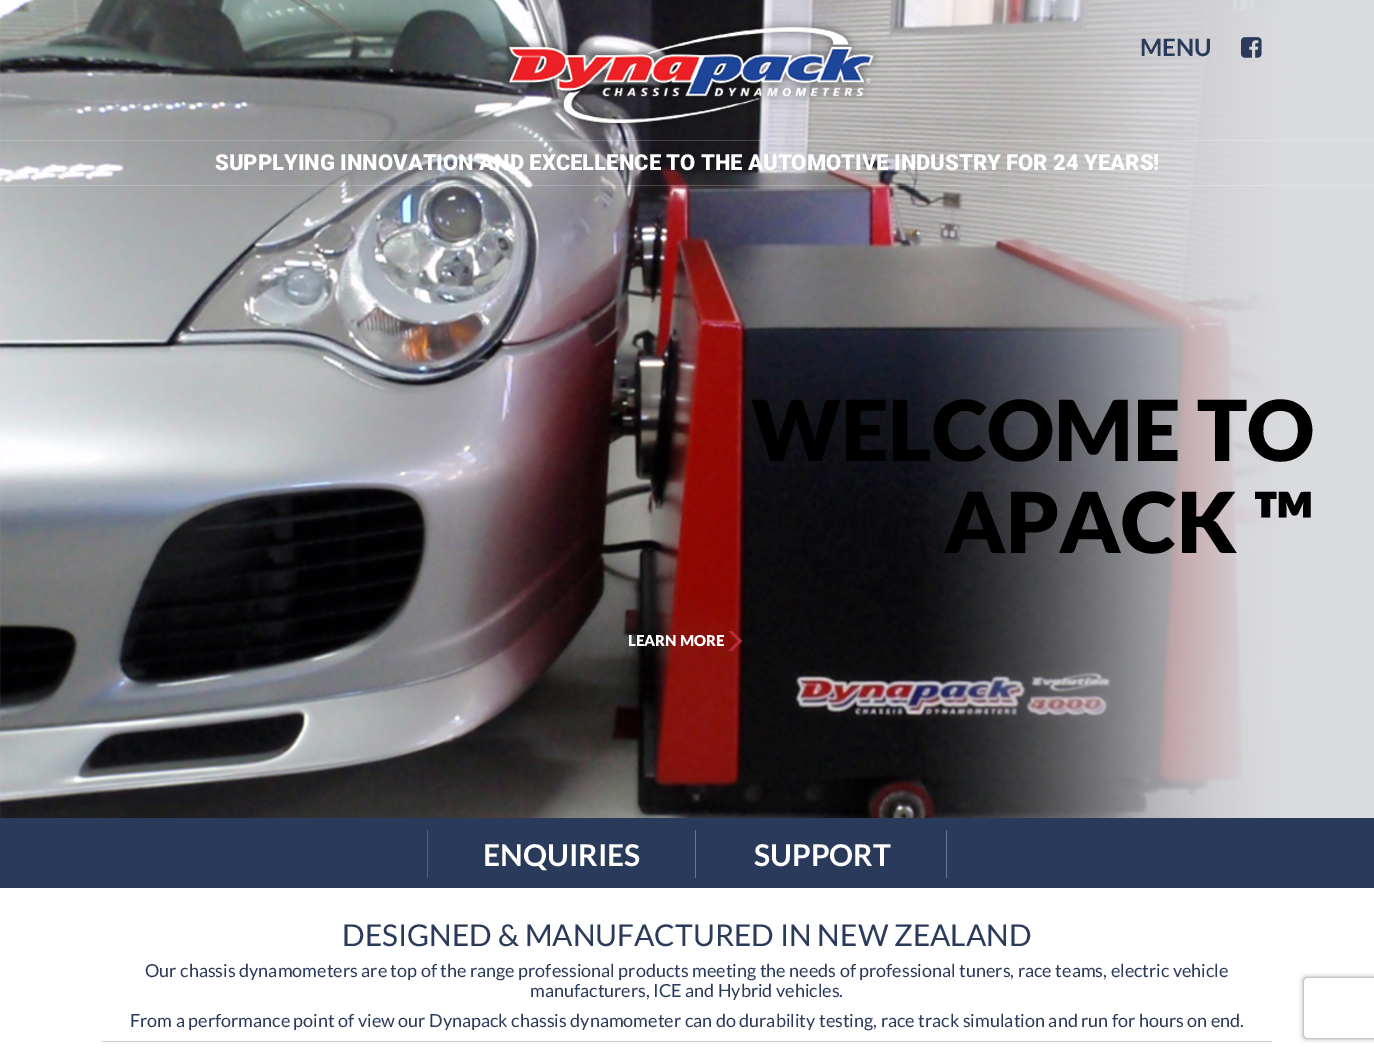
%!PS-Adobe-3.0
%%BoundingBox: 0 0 1374 1052
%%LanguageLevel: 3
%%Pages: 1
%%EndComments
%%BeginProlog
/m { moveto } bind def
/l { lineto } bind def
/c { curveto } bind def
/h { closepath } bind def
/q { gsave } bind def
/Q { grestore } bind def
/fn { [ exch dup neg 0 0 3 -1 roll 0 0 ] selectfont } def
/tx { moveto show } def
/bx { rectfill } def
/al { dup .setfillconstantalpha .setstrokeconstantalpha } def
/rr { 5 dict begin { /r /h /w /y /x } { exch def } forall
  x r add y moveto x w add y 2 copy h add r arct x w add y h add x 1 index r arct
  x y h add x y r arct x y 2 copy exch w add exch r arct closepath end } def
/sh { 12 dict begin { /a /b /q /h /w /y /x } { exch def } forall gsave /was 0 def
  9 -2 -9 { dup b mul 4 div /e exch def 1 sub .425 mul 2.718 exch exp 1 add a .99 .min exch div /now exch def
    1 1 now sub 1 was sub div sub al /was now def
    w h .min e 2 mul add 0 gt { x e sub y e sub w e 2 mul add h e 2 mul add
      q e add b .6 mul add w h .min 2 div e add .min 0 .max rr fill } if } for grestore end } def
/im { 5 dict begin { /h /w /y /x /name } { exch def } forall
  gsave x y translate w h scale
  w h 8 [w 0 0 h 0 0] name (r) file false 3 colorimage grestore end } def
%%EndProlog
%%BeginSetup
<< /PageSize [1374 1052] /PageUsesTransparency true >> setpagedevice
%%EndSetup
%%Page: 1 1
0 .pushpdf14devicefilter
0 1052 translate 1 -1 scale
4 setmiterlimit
1 setgray
0 0 1374 1052 bx
(image0.raw) 0 0 1374 818 im
/Lato-Bold 24 fn
0.165 0.227 0.353 setrgbcolor
(MENU) 1140 56 tx
(image1.raw) 1241 37 21 21 im
(image2.raw) 505 20 374 110 im
0.2 al
1 setgray
0 140 1374 1 bx
0 185 1374 1 bx
/Roboto-Black 22 fn
1 al
(SUPPLYING INNOVATION AND EXCELLENCE TO THE AUTOMOTIVE INDUSTRY FOR 24 YEARS!) 215 170 tx
/Lato-Black 84 fn
0 setgray
(WELCOME TO) 751 461 tx
(APACK ™) 944 553 tx
/Lato-Black 15 fn
1 setgray
(LEARN MORE) 628 646 tx
(image3.raw) 728 631 14 20 im
0.165 0.227 0.353 setrgbcolor
0 818 1374 70 bx
0.416 0.459 0.549 setrgbcolor
695 830 1 48 bx
0.333 0.38 0.482 setrgbcolor
427 830 1 48 bx
/Lato-Bold 30 fn
1 setgray
(ENQUIRIES) 483 866 tx
0.416 0.459 0.549 setrgbcolor
946 830 1 48 bx
1 setgray
(SUPPORT) 754 866 tx
/Lato-Regular 30 fn
0.165 0.227 0.353 setrgbcolor
(DESIGNED & MANUFACTURED IN NEW ZEALAND) 342 946 tx
/Lato-Regular 18 fn
(Our chassis dynamometers are top of the range professional products meeting the needs of professional tuners, race teams, electric vehicle) 145 977 tx
(manufacturers, ICE and Hybrid vehicles.) 530 997 tx
(From a performance point of view our Dynapack chassis dynamometer can do durability testing, race track simulation and run for hours on end.) 130 1027 tx
0.8 setgray
102 1041 1170 1 bx
q
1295 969 m 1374 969 l 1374 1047 l 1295 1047 l h 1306 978 m 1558 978 l 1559 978 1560 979 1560 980 c 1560 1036 l 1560 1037 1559 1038 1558 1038 c 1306 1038 l 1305 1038 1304 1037 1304 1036 c 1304 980 l 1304 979 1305 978 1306 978 c h eoclip newpath
0.502 setgray
1304 978 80 60 2 2.5 1 sh
Q
.poppdf14devicefilter showpage
%%EOF
